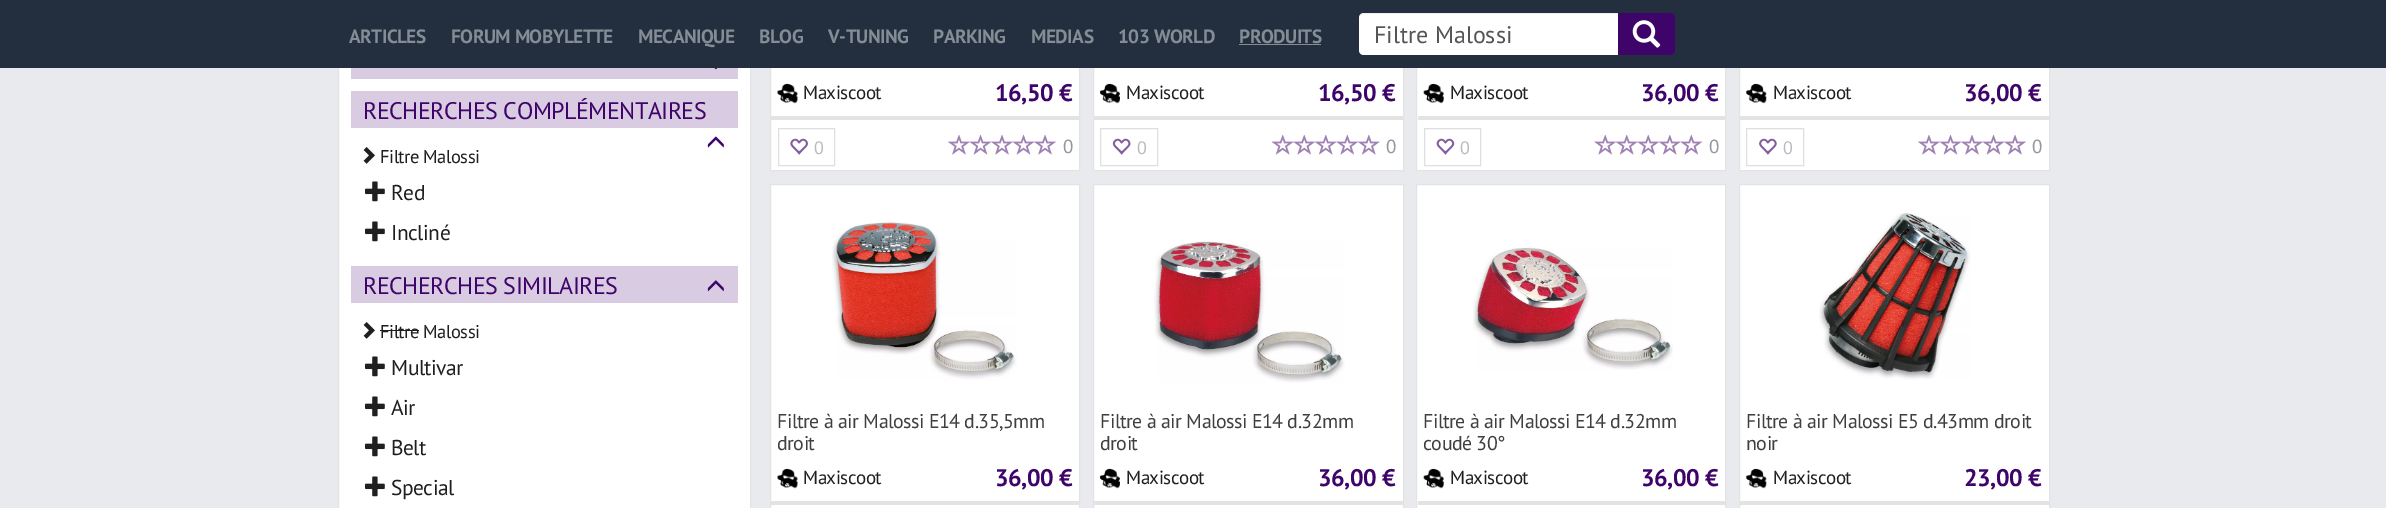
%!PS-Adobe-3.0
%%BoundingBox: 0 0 2386 508
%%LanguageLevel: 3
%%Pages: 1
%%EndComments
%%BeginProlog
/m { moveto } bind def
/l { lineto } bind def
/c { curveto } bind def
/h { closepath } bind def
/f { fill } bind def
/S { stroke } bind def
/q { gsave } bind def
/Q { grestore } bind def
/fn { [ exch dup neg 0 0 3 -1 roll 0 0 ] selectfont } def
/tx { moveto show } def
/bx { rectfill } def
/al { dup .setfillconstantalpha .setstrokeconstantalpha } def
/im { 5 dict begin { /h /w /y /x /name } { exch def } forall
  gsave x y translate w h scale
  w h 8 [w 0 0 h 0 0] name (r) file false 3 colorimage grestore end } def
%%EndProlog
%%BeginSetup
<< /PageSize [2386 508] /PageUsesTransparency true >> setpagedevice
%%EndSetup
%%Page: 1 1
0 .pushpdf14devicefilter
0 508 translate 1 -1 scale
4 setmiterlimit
0.914 0.918 0.929 setrgbcolor
0 0 2386 508 bx
1 setgray
339 68 411 440 bx
0.89 setgray
338.5 -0.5 412 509 rectstroke
1 setgray
771 68 308 102 bx
0.89 setgray
770.5 -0.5 309 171 rectstroke
1 setgray
1094 68 309 102 bx
0.89 setgray
1093.5 -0.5 310 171 rectstroke
1 setgray
1417 68 308 102 bx
0.89 setgray
1416.5 -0.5 309 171 rectstroke
1 setgray
1740 68 309 102 bx
0.89 setgray
1739.5 -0.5 310 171 rectstroke
0.137 0.184 0.243 setrgbcolor
0 0 2386 68 bx
/PTSans-Bold 19.25 fn
0.518 0.553 0.584 setrgbcolor
349 43 m -0.5 0 (ARTICLES) ashow
451 43 m -0.5 0 (FORUM MOBYLETTE) ashow
638 43 m -0.5 0 (MECANIQUE) ashow
759 43 m -0.5 0 (BLOG) ashow
828 43 m -0.5 0 (V-TUNING) ashow
933 43 m -0.5 0 (PARKING) ashow
1031 43 m -0.5 0 (MEDIAS) ashow
1118 43 m -0.5 0 (103 WORLD) ashow
1239 43 m -0.5 0 (PRODUITS) ashow
1239 44 82 1 bx
1 setgray
1364 13 m 1618 13 l 1618 55 l 1364 55 l 1361 55 1359 53 1359 50 c 1359 18 l 1359 15 1361 13 1364 13 c h f
0.07 al
0 setgray
1364 14 m 1618 14 l 1618 13 l 1364 13 l 1361 13 1359 16 1359 19 c 1359 16 1361 14 1364 14 c h f
/PTSans-Regular 24 fn
1 al
0.333 setgray
(Filtre Malossi) 1374 43 tx
0.247 0.016 0.412 setrgbcolor
1618 13 m 1670 13 l 1673 13 1675 15 1675 18 c 1675 50 l 1675 53 1673 55 1670 55 c 1618 55 l h f
(image0.raw) 1632 20 29 28 im
0.851 0.796 0.886 setrgbcolor
351 68 387 11 bx
(image1.raw) 714 68 4 2 im
351 91 387 37 bx
0.247 0.016 0.412 setrgbcolor
363 119 m -0.5 0 (RECHERCHES COMPLÉMENTAIRES) ashow
(image2.raw) 707 136 17 12 im
(image3.raw) 363 147 12 17 im
/PTSans-Regular 18.5 fn
0.122 setgray
380 163 m -0.5 0 (Filtre Malossi) ashow
(image4.raw) 365 181 20 21 im
/PTSans-Regular 21.5 fn
391 200 m -0.5 0 (Red) ashow
(image4.raw) 365 221 20 21 im
391 240 m -0.5 0 (Incliné) ashow
0.851 0.796 0.886 setrgbcolor
351 266 387 37 bx
/PTSans-Regular 24 fn
0.247 0.016 0.412 setrgbcolor
363 294 m -0.5 0 (RECHERCHES SIMILAIRES) ashow
(image5.raw) 707 280 17 12 im
(image3.raw) 363 322 12 17 im
/PTSans-Regular 18.5 fn
0.122 setgray
380 338 m -0.5 0 (Filtre Malossi) ashow
380 330 39 1 bx
(image4.raw) 365 356 20 21 im
/PTSans-Regular 21.5 fn
391 375 m -0.5 0 (Multivar) ashow
(image4.raw) 365 396 20 21 im
391 415 m -0.5 0 (Air) ashow
(image4.raw) 365 436 20 21 im
391 455 m -0.5 0 (Belt) ashow
(image4.raw) 365 476 20 21 im
391 495 m -0.5 0 (Special) ashow
(image6.raw) 777 83 21 21 im
/PTSans-Regular 19 fn
803 99 m -0.5 0 (Maxiscoot) ashow
/PTSans-Bold 24 fn
0.247 0.016 0.412 setrgbcolor
995 101 m -0.5 0 (16,50 €) ashow
0.89 setgray
771 116 308 4 bx
0.875 setgray
778.5 128.5 56 37 rectstroke
(image7.raw) 790 138 18 17 im
/PTSans-Regular 18 fn
0.725 0.733 0.753 setrgbcolor
(0) 814 154 tx
(image8.raw) 948 134 108 21 im
/PTSans-Regular 19 fn
0.58 0.592 0.62 setrgbcolor
1063 153 m -0.5 0 (0) ashow
(image9.raw) 1100 83 20 21 im
0.122 setgray
1126 99 m -0.5 0 (Maxiscoot) ashow
/PTSans-Bold 24 fn
0.247 0.016 0.412 setrgbcolor
1318 101 m -0.5 0 (16,50 €) ashow
0.89 setgray
1094 116 309 4 bx
0.875 setgray
1100.5 128.5 57 37 rectstroke
(image10.raw) 1112 138 19 17 im
/PTSans-Regular 18 fn
0.725 0.733 0.753 setrgbcolor
(0) 1137 154 tx
(image11.raw) 1271 134 109 21 im
/PTSans-Regular 19 fn
0.58 0.592 0.62 setrgbcolor
1386 153 m -0.5 0 (0) ashow
(image12.raw) 1423 83 21 21 im
0.122 setgray
1450 99 m -0.5 0 (Maxiscoot) ashow
/PTSans-Bold 24 fn
0.247 0.016 0.412 setrgbcolor
1641 101 m -0.5 0 (36,00 €) ashow
0.89 setgray
1418 116 307 4 bx
0.875 setgray
1424.5 128.5 56 37 rectstroke
(image13.raw) 1436 138 19 17 im
/PTSans-Regular 18 fn
0.725 0.733 0.753 setrgbcolor
(0) 1460 154 tx
(image14.raw) 1594 134 108 21 im
/PTSans-Regular 19 fn
0.58 0.592 0.62 setrgbcolor
1709 153 m -0.5 0 (0) ashow
(image15.raw) 1746 83 21 21 im
0.122 setgray
1773 99 m -0.5 0 (Maxiscoot) ashow
/PTSans-Bold 24 fn
0.247 0.016 0.412 setrgbcolor
1964 101 m -0.5 0 (36,00 €) ashow
0.89 setgray
1740 116 309 4 bx
0.875 setgray
1746.5 128.5 57 37 rectstroke
(image16.raw) 1759 138 18 17 im
/PTSans-Regular 18 fn
0.725 0.733 0.753 setrgbcolor
(0) 1783 154 tx
(image8.raw) 1918 134 108 21 im
/PTSans-Regular 19 fn
0.58 0.592 0.62 setrgbcolor
2032 153 m -0.5 0 (0) ashow
1 setgray
770.5 184.5 m 1079.5 184.5 l 1079.5 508.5 l 770.5 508.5 l h q f Q
0.89 setgray
S
(image17.raw) 832 222 185 158 im
/PTSans-Regular 19.9 fn
0.247 setgray
777 428 m -0.5 0 (Filtre à air Malossi E14 d.35,5mm) ashow
777 450 m -0.5 0 (droit) ashow
(image18.raw) 777 468 21 21 im
/PTSans-Regular 19 fn
0.122 setgray
803 484 m -0.5 0 (Maxiscoot) ashow
/PTSans-Bold 24 fn
0.247 0.016 0.412 setrgbcolor
995 486 m -0.5 0 (36,00 €) ashow
0.89 setgray
771 501 308 4 bx
1 setgray
1093.5 184.5 m 1403.5 184.5 l 1403.5 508.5 l 1093.5 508.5 l h q f Q
0.89 setgray
S
(image19.raw) 1154 241 191 142 im
/PTSans-Regular 19.9 fn
0.247 setgray
1100 428 m -0.5 0 (Filtre à air Malossi E14 d.32mm) ashow
1100 450 m -0.5 0 (droit) ashow
(image20.raw) 1100 468 20 21 im
/PTSans-Regular 19 fn
0.122 setgray
1126 484 m -0.5 0 (Maxiscoot) ashow
/PTSans-Bold 24 fn
0.247 0.016 0.412 setrgbcolor
1318 486 m -0.5 0 (36,00 €) ashow
0.89 setgray
1094 501 309 4 bx
1 setgray
1416.5 184.5 m 1725.5 184.5 l 1725.5 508.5 l 1416.5 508.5 l h q f Q
0.89 setgray
S
(image21.raw) 1473 247 200 123 im
/PTSans-Regular 19.9 fn
0.247 setgray
1423 428 m -0.5 0 (Filtre à air Malossi E14 d.32mm) ashow
1423 450 m -0.5 0 (coudé 30°) ashow
(image22.raw) 1423 468 21 21 im
/PTSans-Regular 19 fn
0.122 setgray
1450 484 m -0.5 0 (Maxiscoot) ashow
/PTSans-Bold 24 fn
0.247 0.016 0.412 setrgbcolor
1641 486 m -0.5 0 (36,00 €) ashow
0.89 setgray
1418 501 307 4 bx
1 setgray
1739.5 184.5 m 2049.5 184.5 l 2049.5 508.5 l 1739.5 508.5 l h q f Q
0.89 setgray
S
(image23.raw) 1819 213 152 167 im
/PTSans-Regular 19.9 fn
0.247 setgray
1746 428 m -0.5 0 (Filtre à air Malossi E5 d.43mm droit) ashow
1746 450 m -0.5 0 (noir) ashow
(image24.raw) 1746 468 21 21 im
/PTSans-Regular 19 fn
0.122 setgray
1773 484 m -0.5 0 (Maxiscoot) ashow
/PTSans-Bold 24 fn
0.247 0.016 0.412 setrgbcolor
1964 486 m -0.5 0 (23,00 €) ashow
0.89 setgray
1740 501 309 4 bx
.poppdf14devicefilter showpage
%%EOF
